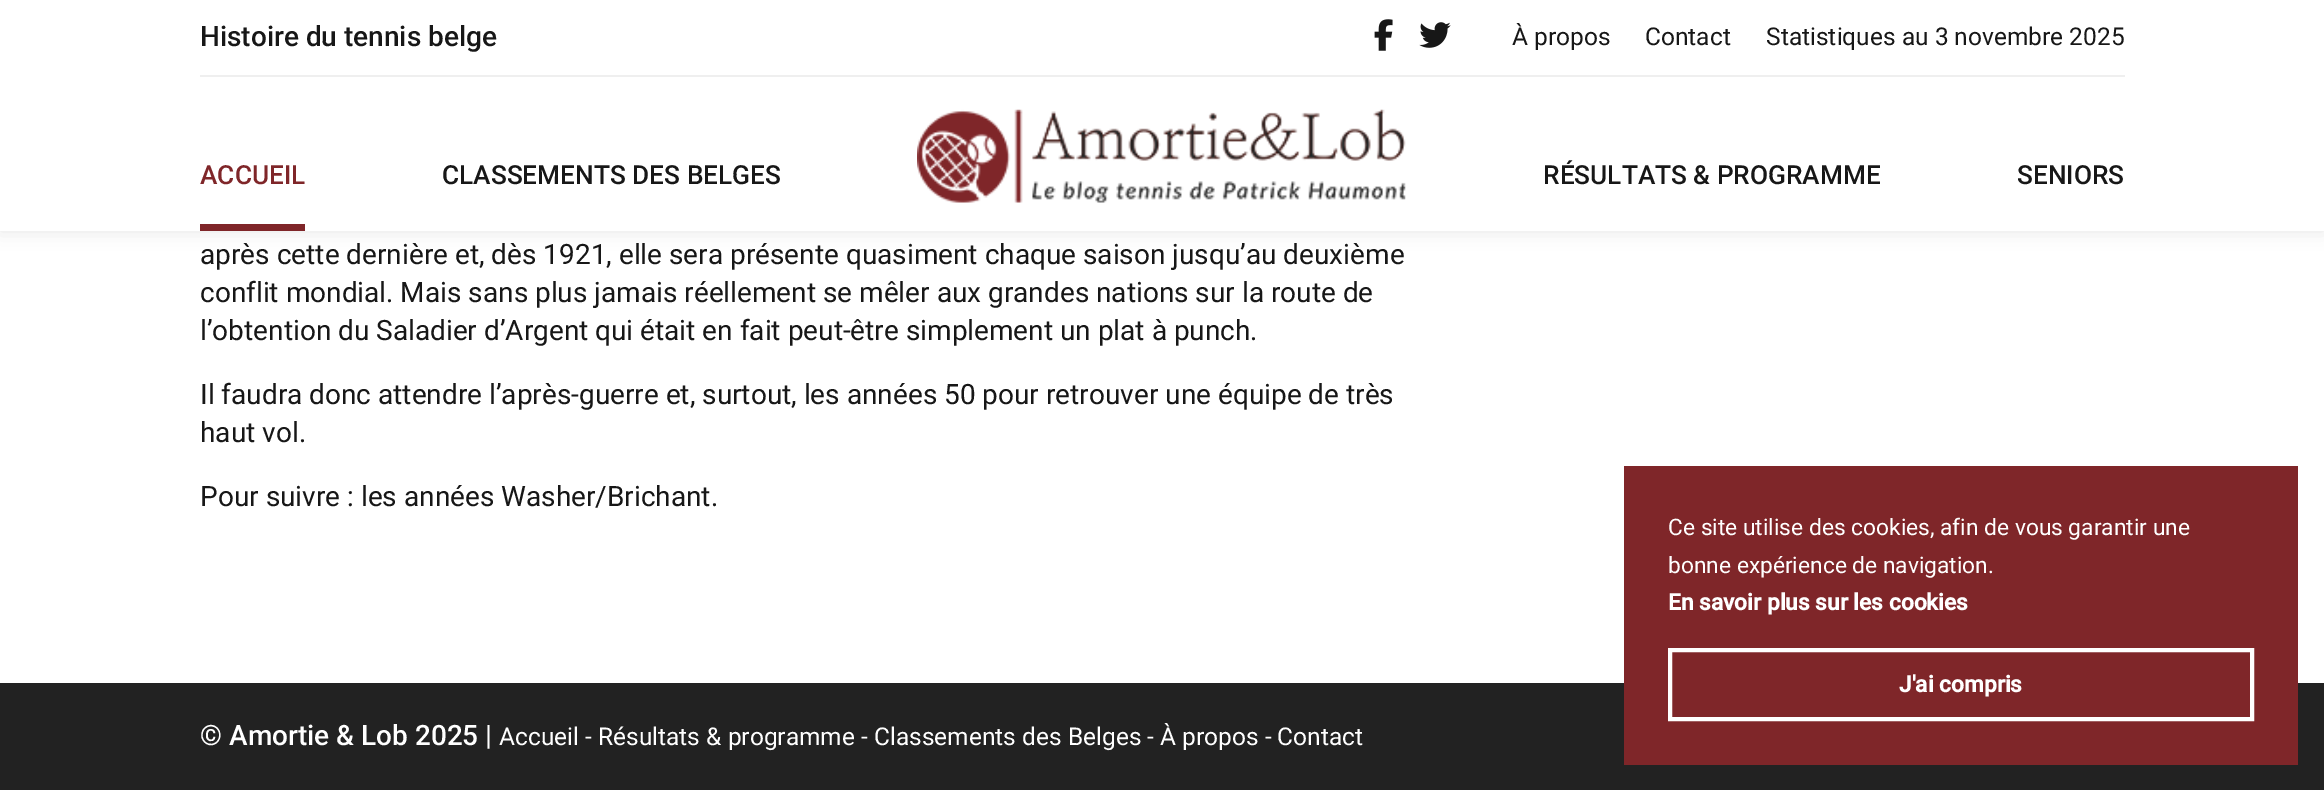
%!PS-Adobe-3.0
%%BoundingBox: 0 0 2324 790
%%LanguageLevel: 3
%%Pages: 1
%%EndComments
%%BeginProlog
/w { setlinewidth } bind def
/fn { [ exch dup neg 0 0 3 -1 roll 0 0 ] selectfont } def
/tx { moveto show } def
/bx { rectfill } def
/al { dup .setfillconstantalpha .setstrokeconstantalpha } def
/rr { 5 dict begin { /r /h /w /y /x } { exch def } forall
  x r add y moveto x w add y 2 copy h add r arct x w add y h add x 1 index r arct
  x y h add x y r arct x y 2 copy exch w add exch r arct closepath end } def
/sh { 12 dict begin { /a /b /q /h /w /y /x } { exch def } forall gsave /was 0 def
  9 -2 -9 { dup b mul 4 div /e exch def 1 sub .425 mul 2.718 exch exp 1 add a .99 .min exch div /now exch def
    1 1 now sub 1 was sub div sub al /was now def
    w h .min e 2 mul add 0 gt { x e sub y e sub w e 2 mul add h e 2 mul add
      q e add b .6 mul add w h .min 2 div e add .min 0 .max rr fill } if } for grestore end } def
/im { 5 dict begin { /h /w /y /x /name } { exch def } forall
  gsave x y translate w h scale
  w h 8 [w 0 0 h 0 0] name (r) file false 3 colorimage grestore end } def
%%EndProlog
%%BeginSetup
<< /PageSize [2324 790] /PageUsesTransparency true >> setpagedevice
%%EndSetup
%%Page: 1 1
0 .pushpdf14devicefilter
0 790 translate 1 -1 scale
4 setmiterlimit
1 setgray
0 0 2324 790 bx
0 setgray
0 0 2324 231 0 9 0.1 sh
1 setgray
0 0 2324 231 bx
0.937 setgray
200 75 1925 2 bx
/Roboto-Medium 28 fn
0.09 setgray
(Histoire du tennis belge) 200 46 tx
(image0.raw) 1374 19 19 32 im
(image1.raw) 1419 22 32 26 im
/Roboto-Regular 24.5 fn
(À propos) 1512 45 tx
(Contact) 1645 45 tx
(Statistiques au 3 novembre 2025) 1766 45 tx
(image2.raw) 917 109 489 94 im
/Roboto-Medium 26.25 fn
0.498 0.149 0.161 setrgbcolor
(ACCUEIL) 200 184 tx
200 224 105 7 bx
0.09 setgray
(CLASSEMENTS DES BELGES) 442 184 tx
(RÉSULTATS & PROGRAMME) 1543 184 tx
(SENIORS) 2017 184 tx
/Roboto-Regular 28 fn
(après cette dernière et, dès 1921, elle sera présente quasiment chaque saison jusqu’au deuxième) 200 264 tx
(conflit mondial. Mais sans plus jamais réellement se mêler aux grandes nations sur la route de) 200 302 tx
(l’obtention du Saladier d’Argent qui était en fait peut-être simplement un plat à punch.) 200 340 tx
(Il faudra donc attendre l’après-guerre et, surtout, les années 50 pour retrouver une équipe de très) 200 404 tx
(haut vol.) 200 442 tx
(Pour suivre : les années Washer/Brichant.) 200 506 tx
0.133 setgray
0 683 2324 107 bx
0.498 0.149 0.161 setrgbcolor
1624 466 674 299 bx
/Roboto-Regular 22.75 fn
1 setgray
(Ce site utilise des cookies, afin de vous garantir une) 1668 535 tx
(bonne expérience de navigation.) 1668 573 tx
/Roboto-Bold 22.75 fn
(En savoir plus sur les cookies) 1668 610 tx
4 w
1670 650 582 69 rectstroke
(J'ai compris) 1899 692 tx
/Roboto-Medium 28 fn
(© Amortie & Lob 2025) 200 745 tx
/Roboto-Regular 28 fn
(|) 485 745 tx
/Roboto-Regular 24.5 fn
(Accueil - Résultats & programme - Classements des Belges - À propos - Contact) 499 745 tx
.poppdf14devicefilter showpage
%%EOF
